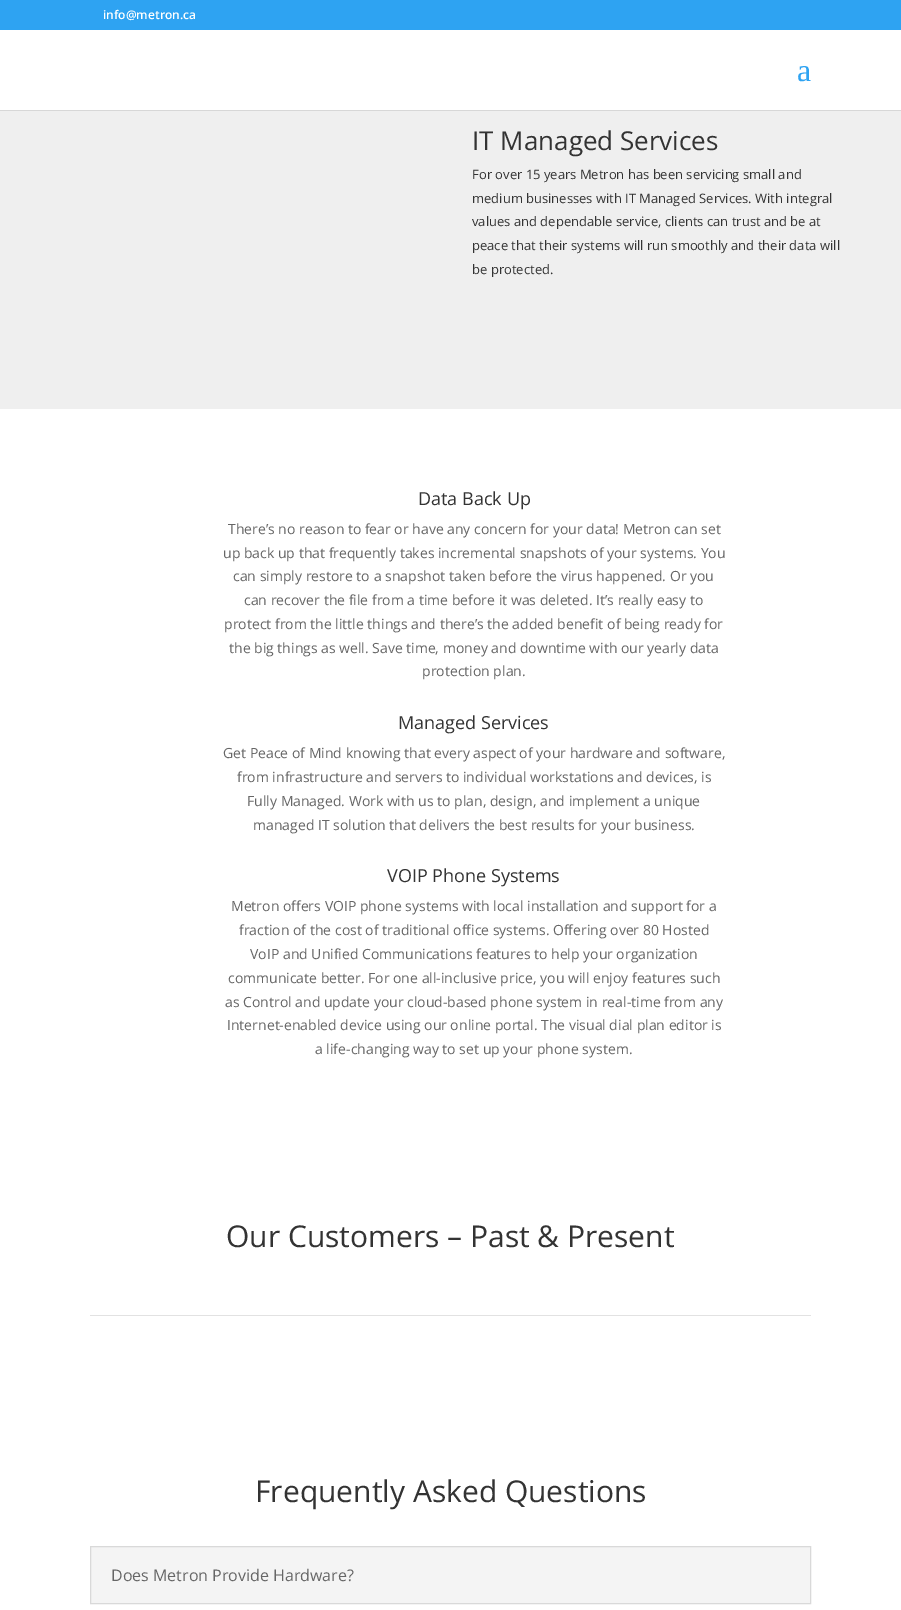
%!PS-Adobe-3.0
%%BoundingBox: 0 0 901 1610
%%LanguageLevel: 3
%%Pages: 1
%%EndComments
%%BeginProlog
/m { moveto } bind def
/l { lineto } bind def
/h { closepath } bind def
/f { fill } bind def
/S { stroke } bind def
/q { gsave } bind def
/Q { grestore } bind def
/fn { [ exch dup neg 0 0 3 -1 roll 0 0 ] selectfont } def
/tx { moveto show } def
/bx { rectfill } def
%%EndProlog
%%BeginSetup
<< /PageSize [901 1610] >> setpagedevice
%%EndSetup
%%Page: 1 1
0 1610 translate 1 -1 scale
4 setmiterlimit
1 setgray
0 0 901 1610 bx
0.18 0.639 0.949 setrgbcolor
0 0 901 30 bx
/OpenSans-SemiBold 12 fn
1 setgray
(info@metron.ca) 103 19 tx
0.843 setgray
0 110 901 1 bx
/LiberationSerif-Regular 32 fn
0.18 0.639 0.949 setrgbcolor
(a) 797 81 tx
0.937 setgray
0 111 901 298 bx
/OpenSans-Regular 26 fn
0.2 setgray
(IT Managed Services) 472 150 tx
/OpenSans-Regular 13 fn
(For over 15 years Metron has been servicing small and) 472 179 tx
(medium businesses with IT Managed Services. With integral) 472 203 tx
(values and dependable service, clients can trust and be at) 472 226 tx
(peace that their systems will run smoothly and their data will) 472 250 tx
(be protected.) 472 274 tx
/OpenSans-Regular 18 fn
(Data Back Up) 418 505 tx
/OpenSans-Regular 14 fn
0.4 setgray
(There’s no reason to fear or have any concern for your data! Metron can set) 228 534 tx
(up back up that frequently takes incremental snapshots of your systems. You) 223 558 tx
(can simply restore to a snapshot taken before the virus happened. Or you) 233 581 tx
(can recover the file from a time before it was deleted. It’s really easy to) 244 605 tx
(protect from the little things and there’s the added benefit of being ready for) 224 629 tx
(the big things as well. Save time, money and downtime with our yearly data) 229 653 tx
(protection plan.) 422 676 tx
/OpenSans-Regular 18 fn
0.2 setgray
(Managed Services) 398 729 tx
/OpenSans-Regular 14 fn
0.4 setgray
(Get Peace of Mind knowing that every aspect of your hardware and software,) 223 758 tx
(from infrastructure and servers to individual workstations and devices, is) 237 782 tx
(Fully Managed. Work with us to plan, design, and implement a unique) 247 806 tx
(managed IT solution that delivers the best results for your business.) 253 830 tx
/OpenSans-Regular 18 fn
0.2 setgray
(VOIP Phone Systems) 387 882 tx
/OpenSans-Regular 14 fn
0.4 setgray
(Metron offers VOIP phone systems with local installation and support for a) 231 911 tx
(fraction of the cost of traditional office systems. Offering over 80 Hosted) 239 935 tx
(VoIP and Unified Communications features to help your organization) 250 959 tx
(communicate better. For one all-inclusive price, you will enjoy features such) 228 983 tx
(as Control and update your cloud-based phone system in real-time from any) 225 1007 tx
(Internet-enabled device using our online portal. The visual dial plan editor is) 227 1030 tx
(a life-changing way to set up your phone system.) 315 1054 tx
/OpenSans-Regular 30 fn
0.2 setgray
(Our Customers – Past & Present) 226 1247 tx
0.886 setgray
90 1315 721 1 bx
0.2 setgray
(Frequently Asked Questions) 255 1502 tx
0.957 setgray
90.5 1546.5 m 810.5 1546.5 l 810.5 1603.5 l 90.5 1603.5 l h q f Q
0.851 setgray
S
/OpenSans-Regular 16 fn
0.4 setgray
(Does Metron Provide Hardware?) 111 1581 tx
showpage
%%EOF
